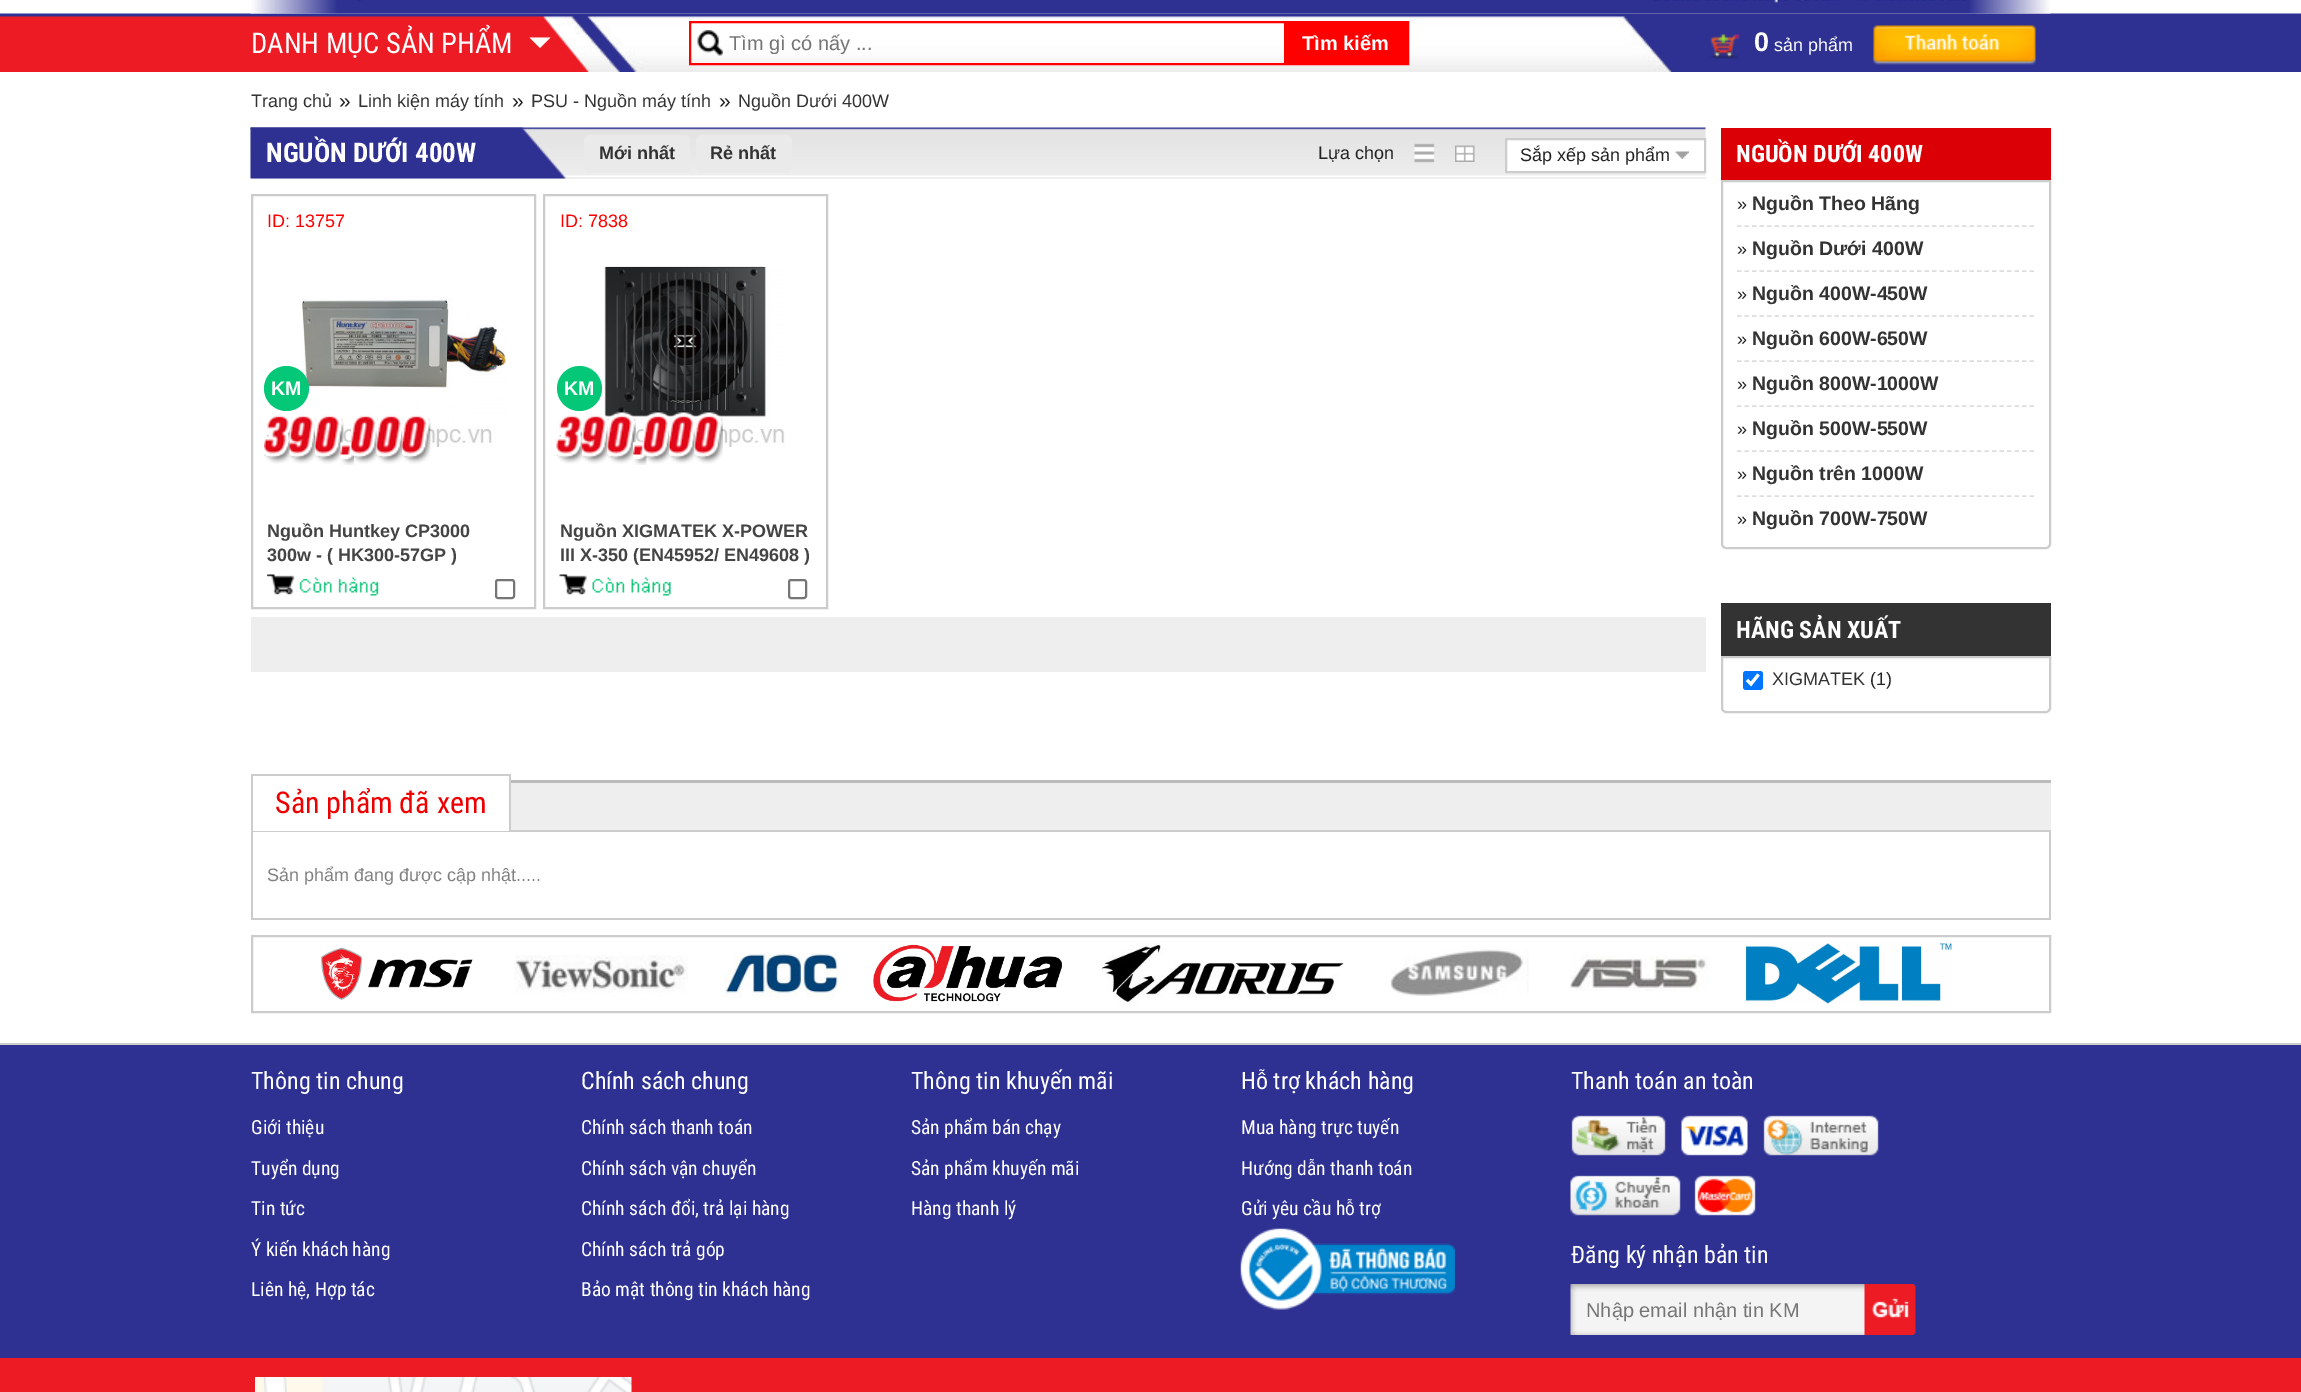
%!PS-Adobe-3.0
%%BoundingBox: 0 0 2301 1392
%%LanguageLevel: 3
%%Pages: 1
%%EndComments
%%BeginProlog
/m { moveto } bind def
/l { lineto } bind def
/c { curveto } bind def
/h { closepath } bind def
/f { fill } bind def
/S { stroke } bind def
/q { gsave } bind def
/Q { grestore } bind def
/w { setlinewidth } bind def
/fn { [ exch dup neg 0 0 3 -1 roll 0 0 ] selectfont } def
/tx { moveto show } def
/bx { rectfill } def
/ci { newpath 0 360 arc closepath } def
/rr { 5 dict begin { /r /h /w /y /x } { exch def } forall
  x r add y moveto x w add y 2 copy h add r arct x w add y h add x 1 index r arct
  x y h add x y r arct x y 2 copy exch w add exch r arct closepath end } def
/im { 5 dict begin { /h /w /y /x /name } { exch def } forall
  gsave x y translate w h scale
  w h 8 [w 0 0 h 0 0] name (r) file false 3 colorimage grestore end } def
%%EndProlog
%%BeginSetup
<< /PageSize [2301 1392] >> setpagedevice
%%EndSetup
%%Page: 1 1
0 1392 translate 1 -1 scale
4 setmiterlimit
1 setgray
0 0 2301 1392 bx
(image1.raw) 0 13 2301 59 im
(image0.raw) 250 0 1801 14 im
/RobotoCondensed-Regular 28.5 fn
(DANH MỤC SẢN PHẨM) 251 53 tx
529.5 37.5 m 550.5 37.5 l 540 48 l h f
(image2.raw) 697 30 26 26 im
1 0 0 setrgbcolor
2 w
690 22 718 42 rectstroke
q
729 32 453 22 rectclip
/LiberationSans-Regular 20 fn
0.459 setgray
(Tìm gì có nấy ...) 729 50 tx
Q
1284 23 123 40 bx
/LiberationSans-Bold 20 fn
1 setgray
(Tìm kiếm) 1302 50 tx
(image3.raw) 1710 34 30 25 im
/LiberationSans-Bold 27 fn
(0) 1754 51 tx
/LiberationSans-Regular 18 fn
(sản phẩm) 1774 51 tx
(image4.raw) 1873 25 163 40 im
0.2 setgray
(Trang chủ) 251 107 tx
/LiberationSans-Regular 21 fn
0.133 setgray
(») 339 108 tx
/LiberationSans-Regular 18 fn
0.2 setgray
(Linh kiện máy tính) 358 107 tx
/LiberationSans-Regular 21 fn
0.133 setgray
(») 512 108 tx
/LiberationSans-Regular 18 fn
0.2 setgray
(PSU - Nguồn máy tính) 531 107 tx
/LiberationSans-Regular 21 fn
0.133 setgray
(») 719 108 tx
/LiberationSans-Regular 18 fn
0.2 setgray
(Nguồn Dưới 400W) 738 107 tx
(image5.raw) 250 127 1456 49 im
0.933 setgray
251 177 1455 2 bx
(image6.raw) 250 127 316 52 im
/RobotoCondensed-Bold 27 fn
1 setgray
(NGUỒN DƯỚI 400W) 266 162 tx
0.918 setgray
584 135 106 38 5 rr f
/LiberationSans-Bold 18 fn
0.2 setgray
(Mới nhất) 599 159 tx
0.918 setgray
696 135 96 38 5 rr f
0.2 setgray
(Rẻ nhất) 710 159 tx
/LiberationSans-Regular 18 fn
0.133 setgray
(Lựa chọn) 1318 159 tx
(image7.raw) 1414 143 21 20 im
(image8.raw) 1455 145 20 17 im
1 setgray
1506 139 m 1705 139 l 1705 172 l 1506 172 l h q f Q
0.8 setgray
S
0.133 setgray
(Sắp xếp sản phẩm) 1520 161 tx
(image9.raw) 1675 151 14 8 im
0.8 setgray
252 195 283 413 rectstroke
1 0 0 setrgbcolor
(ID: 13757) 267 227 tx
(image10.raw) 302 297 204 150 im
0.016 0.78 0.467 setrgbcolor
286.5 388.5 22.5 ci f
/LiberationSans-Bold 19.5 fn
1 setgray
(KM) 271 395 tx
(image11.raw) 264 415 29 49 im
(image12.raw) 289 415 29 49 im
(image13.raw) 315 415 29 49 im
(image14.raw) 340 441 14 24 im
(image15.raw) 351 415 28 49 im
(image16.raw) 376 415 29 49 im
(image17.raw) 402 415 29 49 im
/LiberationSans-Bold 18 fn
0.267 setgray
(Nguồn Huntkey CP3000) 267 537 tx
(300w - \( HK300-57GP \)) 267 561 tx
(image18.raw) 267 574 112 22 im
0.463 setgray
496 580 18 18 2 rr S
0.8 setgray
544 195 283 413 rectstroke
/LiberationSans-Regular 18 fn
1 0 0 setrgbcolor
(ID: 7838) 560 227 tx
0.016 0.78 0.467 setrgbcolor
579.5 388.5 22.5 ci f
/LiberationSans-Bold 19.5 fn
1 setgray
(KM) 564 395 tx
(image19.raw) 604 266 181 181 im
(image20.raw) 556 415 29 49 im
(image21.raw) 582 414 28 50 im
(image22.raw) 607 412 29 52 im
(image23.raw) 633 441 14 24 im
(image24.raw) 643 412 29 52 im
(image25.raw) 669 412 28 52 im
(image26.raw) 694 412 29 52 im
/LiberationSans-Bold 18 fn
0.267 setgray
(Nguồn XIGMATEK X-POWER) 560 537 tx
(III X-350 \(EN45952/ EN49608 \)) 560 561 tx
(image27.raw) 559 574 112 22 im
0.463 setgray
789 580 17 18 2 rr S
0.933 setgray
251 617 1455 55 bx
0.859 0 0.024 setrgbcolor
1721 128 330 52 bx
/RobotoCondensed-Bold 24 fn
1 setgray
(NGUỒN DƯỚI 400W) 1736 162 tx
0.8 setgray
1722 181 m 2050 181 l 2050 544 l 2050 546 2048 548 2046 548 c 1726 548 l 1724 548 1722 546 1722 544 c h S
0.867 setgray
1.5 w
[4.5 3] 0 setdash
1737 226 m 2034 226 l S
/LiberationSans-Regular 18 fn
0.133 setgray
(») 1737 210 tx
/LiberationSans-Bold 19.5 fn
0.2 setgray
(Nguồn Theo Hãng) 1752 210 tx
0.867 setgray
1737 271 m 2034 271 l S
/LiberationSans-Regular 18 fn
0.133 setgray
(») 1737 255 tx
/LiberationSans-Bold 19.5 fn
0.2 setgray
(Nguồn Dưới 400W) 1752 255 tx
0.867 setgray
1737 316 m 2034 316 l S
/LiberationSans-Regular 18 fn
0.133 setgray
(») 1737 300 tx
/LiberationSans-Bold 19.5 fn
0.2 setgray
(Nguồn 400W-450W) 1752 300 tx
0.867 setgray
1737 361 m 2034 361 l S
/LiberationSans-Regular 18 fn
0.133 setgray
(») 1737 345 tx
/LiberationSans-Bold 19.5 fn
0.2 setgray
(Nguồn 600W-650W) 1752 345 tx
0.867 setgray
1737 406 m 2034 406 l S
/LiberationSans-Regular 18 fn
0.133 setgray
(») 1737 390 tx
/LiberationSans-Bold 19.5 fn
0.2 setgray
(Nguồn 800W-1000W) 1752 390 tx
0.867 setgray
1737 451 m 2034 451 l S
/LiberationSans-Regular 18 fn
0.133 setgray
(») 1737 435 tx
/LiberationSans-Bold 19.5 fn
0.2 setgray
(Nguồn 500W-550W) 1752 435 tx
0.867 setgray
1737 496 m 2034 496 l S
/LiberationSans-Regular 18 fn
0.133 setgray
(») 1737 480 tx
/LiberationSans-Bold 19.5 fn
0.2 setgray
(Nguồn trên 1000W) 1752 480 tx
/LiberationSans-Regular 18 fn
0.133 setgray
(») 1737 525 tx
/LiberationSans-Bold 19.5 fn
0.2 setgray
(Nguồn 700W-750W) 1752 525 tx
1721 603 330 53 bx
/RobotoCondensed-Bold 24 fn
1 setgray
(HÃNG SẢN XUẤT) 1736 638 tx
0.8 setgray
2 w
[] 0 setdash
1722 657 m 2050 657 l 2050 708 l 2050 710 2048 712 2046 712 c 1726 712 l 1724 712 1722 710 1722 708 c h S
0 0.459 1 setrgbcolor
1743 671 20 19 3 rr f
1 setgray
3.1 w
1747 680 m 1751 684 l 1758.5 674.5 l S
/LiberationSans-Regular 18 fn
0.2 setgray
(XIGMATEK) 1772 685 tx
0.133 setgray
(\(1\)) 1870 685 tx
0.933 setgray
511 783 1540 47 bx
0.733 setgray
511 780 1540 3 bx
0.8 setgray
251 830 1800 2 bx
1 setgray
253 830 256 1 bx
0.8 setgray
251 774 259 2 bx
509 774 2 57 bx
251 774 2 57 bx
/RobotoCondensed-Regular 30 fn
0.933 0 0 setrgbcolor
(Sản phẩm đã xem) 275 813 tx
0.8 setgray
2049 831 2 89 bx
251 918 1800 2 bx
251 831 2 89 bx
/LiberationSans-Regular 18 fn
0.502 setgray
(Sản phẩm đang được cập nhật.....) 267 881 tx
0.8 setgray
2 w
252 936 1798 76 rectstroke
(image28.raw) 321 947 152 53 im
(image29.raw) 514 955 174 38 im
(image30.raw) 724 952 115 46 im
(image31.raw) 873 944 189 58 im
(image32.raw) 1101 943 243 61 im
(image33.raw) 1390 949 139 47 im
(image34.raw) 1570 955 140 36 im
(image35.raw) 1746 943 206 61 im
0.18 0.192 0.573 setrgbcolor
0 1045 2301 313 bx
0.8 setgray
0 1043 2301 2 bx
/RobotoCondensed-Regular 24 fn
1 setgray
(Thông tin chung) 251 1089 tx
/RobotoCondensed-Regular 19.5 fn
(Giới thiệu) 251 1134 tx
(Tuyển dụng) 251 1175 tx
(Tin tức) 251 1215 tx
(Ý kiến khách hàng) 251 1256 tx
(Liên hệ, Hợp tác) 251 1296 tx
/RobotoCondensed-Regular 24 fn
(Chính sách chung) 581 1089 tx
/RobotoCondensed-Regular 19.5 fn
(Chính sách thanh toán) 581 1134 tx
(Chính sách vận chuyển) 581 1175 tx
(Chính sách đổi, trả lại hàng) 581 1215 tx
(Chính sách trả góp) 581 1256 tx
(Bảo mật thông tin khách hàng) 581 1296 tx
/RobotoCondensed-Regular 24 fn
(Thông tin khuyến mãi) 911 1089 tx
/RobotoCondensed-Regular 19.5 fn
(Sản phẩm bán chạy) 911 1134 tx
(Sản phẩm khuyến mãi) 911 1175 tx
(Hàng thanh lý) 911 1215 tx
/RobotoCondensed-Regular 24 fn
(Hỗ trợ khách hàng) 1241 1089 tx
/RobotoCondensed-Regular 19.5 fn
(Mua hàng trực tuyến) 1241 1134 tx
(Hướng dẫn thanh toán) 1241 1175 tx
(Gửi yêu cầu hỗ trợ) 1241 1215 tx
(image36.raw) 1240 1228 215 82 im
/RobotoCondensed-Regular 24 fn
(Thanh toán an toàn) 1571 1089 tx
(image37.raw) 1570 1115 309 101 im
(Đăng ký nhận bản tin) 1571 1263 tx
(image38.raw) 1570 1284 346 51 im
/LiberationSans-Regular 20 fn
0.459 setgray
(Nhập email nhận tin KM) 1586 1317 tx
0.929 0.106 0.141 setrgbcolor
0 1358 2301 34 bx
(image39.raw) 255 1377 377 15 im
showpage
%%EOF
